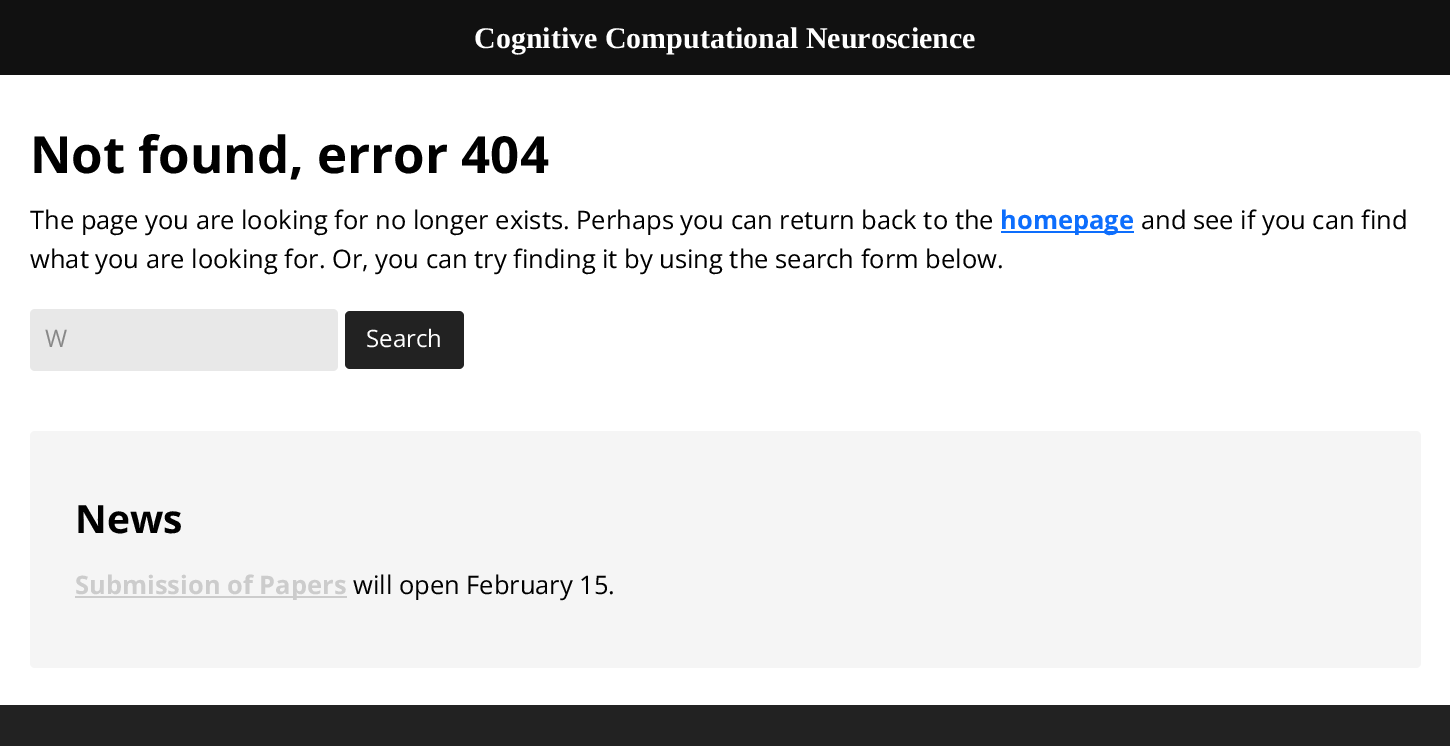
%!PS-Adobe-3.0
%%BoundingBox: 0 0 1450 746
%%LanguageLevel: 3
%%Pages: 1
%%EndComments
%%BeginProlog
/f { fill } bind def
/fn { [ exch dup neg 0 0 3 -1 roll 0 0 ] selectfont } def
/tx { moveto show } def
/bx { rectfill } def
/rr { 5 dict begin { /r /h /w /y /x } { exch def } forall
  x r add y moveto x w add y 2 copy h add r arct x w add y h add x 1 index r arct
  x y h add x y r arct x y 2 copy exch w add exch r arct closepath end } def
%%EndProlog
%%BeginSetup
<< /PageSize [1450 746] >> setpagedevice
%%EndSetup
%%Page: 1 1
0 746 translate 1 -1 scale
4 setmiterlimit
1 setgray
0 0 1450 746 bx
0.067 setgray
0 0 1450 75 bx
/LiberationSerif-Bold 30 fn
1 setgray
(Cognitive Computational Neuroscience) 474 48 tx
/OpenSans-Bold 51 fn
0 setgray
(Not found, error 404) 30 173 tx
/OpenSans-Regular 25.5 fn
(The page you are looking for no longer exists. Perhaps you can return back to the) 30 229 tx
0.051 0.431 0.992 setrgbcolor
1001 231 133 2 bx
/OpenSans-Bold 25.5 fn
(homepage) 1000 229 tx
/OpenSans-Regular 25.5 fn
0 setgray
(and see if you can find) 1141 229 tx
(what you are looking for. Or, you can try finding it by using the search form below.) 30 268 tx
0.91 setgray
30 309 308 62 5 rr f
/OpenSans-Regular 24 fn
0.533 setgray
(W) 45 347 tx
0.133 setgray
345 311 119 58 5 rr f
1 setgray
(Search) 366 347 tx
0.961 setgray
30 431 1391 237 5 rr f
/OpenSans-Bold 39 fn
0 setgray
(News) 75 533 tx
0.8 setgray
75 596 272 2 bx
/OpenSans-Bold 25.5 fn
(Submission of Papers) 75 594 tx
/OpenSans-Regular 25.5 fn
0 setgray
(will open February 15.) 353 594 tx
0.133 setgray
0 705 1450 41 bx
showpage
%%EOF
